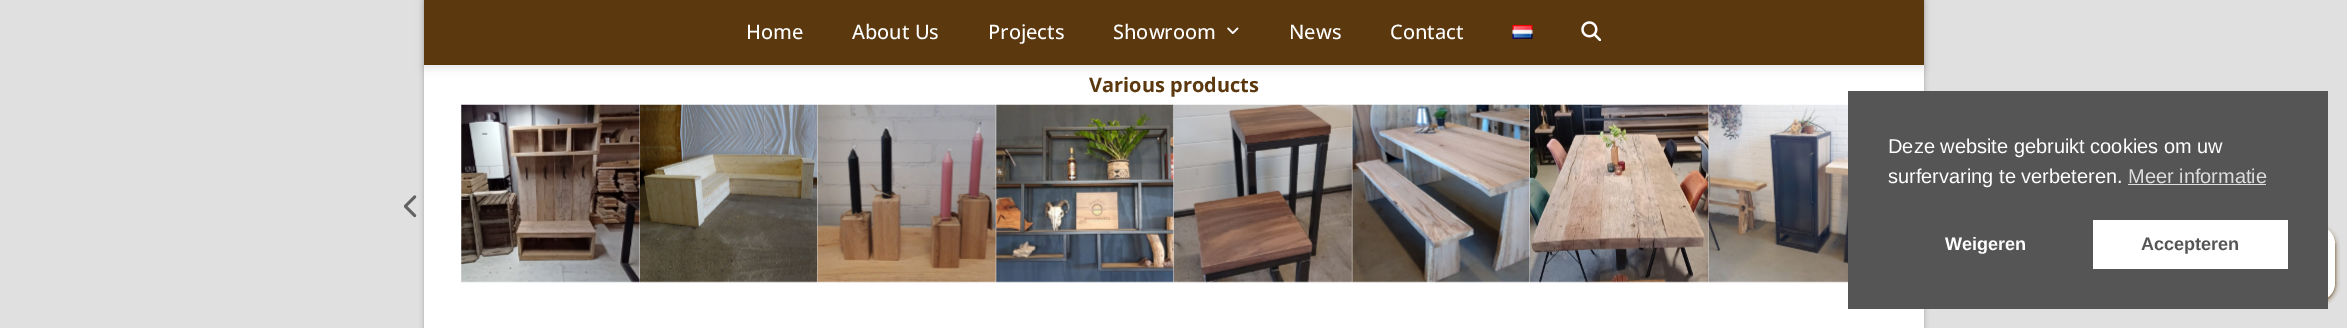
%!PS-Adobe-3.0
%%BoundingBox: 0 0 2347 328
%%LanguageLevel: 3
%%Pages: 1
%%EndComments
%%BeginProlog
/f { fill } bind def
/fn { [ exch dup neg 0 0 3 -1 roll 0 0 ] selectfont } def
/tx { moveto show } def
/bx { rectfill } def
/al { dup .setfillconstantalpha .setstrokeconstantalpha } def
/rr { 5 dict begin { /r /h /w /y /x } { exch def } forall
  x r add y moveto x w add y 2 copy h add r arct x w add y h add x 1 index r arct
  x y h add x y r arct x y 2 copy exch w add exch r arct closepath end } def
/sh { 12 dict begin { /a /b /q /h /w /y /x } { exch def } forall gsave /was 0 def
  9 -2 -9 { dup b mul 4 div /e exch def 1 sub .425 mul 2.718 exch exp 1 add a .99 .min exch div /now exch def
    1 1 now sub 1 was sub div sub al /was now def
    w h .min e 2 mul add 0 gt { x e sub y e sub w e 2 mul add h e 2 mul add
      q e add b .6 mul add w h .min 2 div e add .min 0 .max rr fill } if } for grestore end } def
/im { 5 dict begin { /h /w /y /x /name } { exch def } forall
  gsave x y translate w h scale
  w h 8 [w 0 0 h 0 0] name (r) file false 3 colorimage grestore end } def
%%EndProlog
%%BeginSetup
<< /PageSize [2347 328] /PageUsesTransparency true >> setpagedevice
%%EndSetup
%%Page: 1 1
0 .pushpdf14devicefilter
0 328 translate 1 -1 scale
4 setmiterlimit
0.878 setgray
0 0 2347 328 bx
0 setgray
424 -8 1500 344 0 2.5 0.25 sh
1 setgray
424 65 1500 263 bx
0 setgray
424 3 1500 65 0 4.5 0.1 sh
0.357 0.22 0.055 setrgbcolor
424 0 1500 65 bx
/OpenSans-Medium 20 fn
1 setgray
(Home) 746 39 tx
(About Us) 852 39 tx
(Projects) 988 39 tx
(Showroom) 1113 39 tx
(image0.raw) 1227 27 12 7 im
(News) 1289 39 tx
(Contact) 1390 39 tx
(image1.raw) 1512 25 21 14 im
(image2.raw) 1581 21 20 20 im
/OpenSans-Bold 20 fn
0.357 0.22 0.055 setrgbcolor
(Various products) 1089 92 tx
(image3.raw) 404 195 13 23 im
(image4.raw) 461 104 180 179 im
(image5.raw) 640 104 178 179 im
(image6.raw) 817 104 180 179 im
(image7.raw) 996 104 179 179 im
(image8.raw) 1173 104 180 179 im
(image9.raw) 1352 104 179 179 im
(image10.raw) 1530 104 179 179 im
(image11.raw) 1708 104 140 179 im
2260 228 75 75 18 2.5 1 sh
1 setgray
2260 226 75 75 18 rr f
0.333 setgray
1848 91 480 218 bx
/LiberationSans-Regular 20 fn
1 setgray
(Deze website gebruikt cookies om uw) 1888 153 tx
(surfervaring te verbeteren.) 1888 183 tx
0.867 setgray
(Meer informatie) 2128 183 tx
2128 184 138 1 bx
/LiberationSans-Bold 18 fn
1 setgray
(Weigeren) 1945 250 tx
2093 220 195 49 bx
0.333 setgray
(Accepteren) 2141 250 tx
.poppdf14devicefilter showpage
%%EOF
